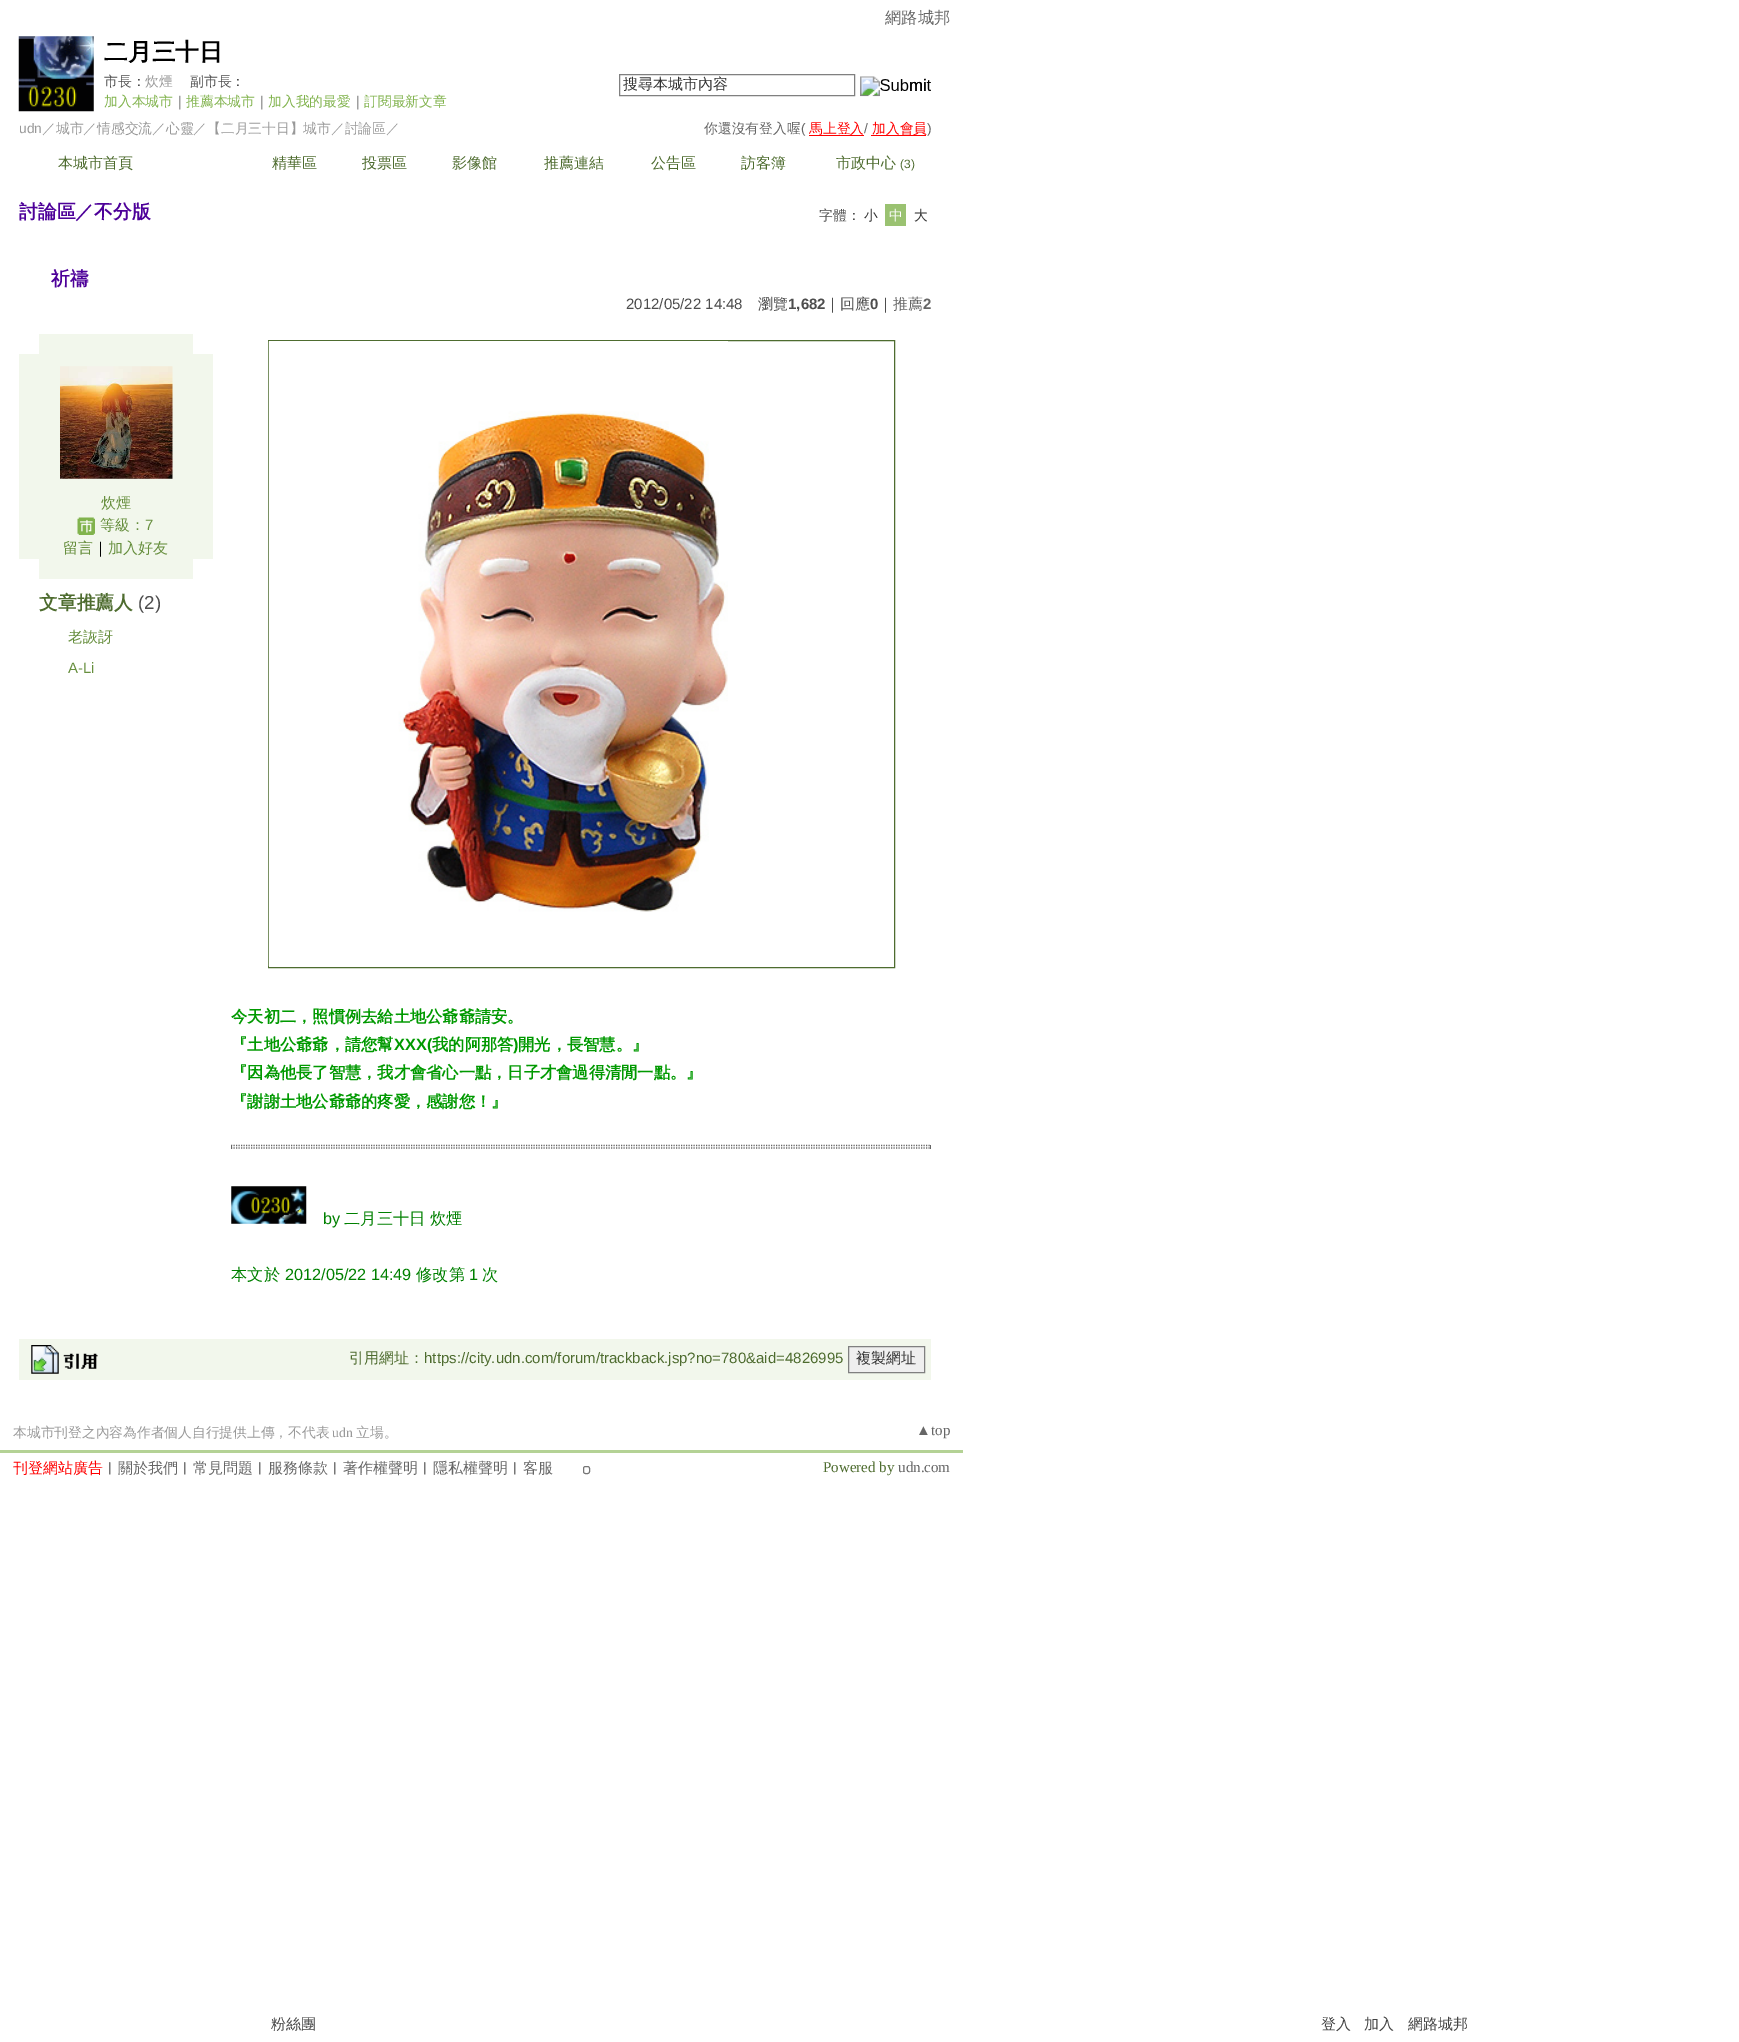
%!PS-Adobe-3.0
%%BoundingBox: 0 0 1739 2042
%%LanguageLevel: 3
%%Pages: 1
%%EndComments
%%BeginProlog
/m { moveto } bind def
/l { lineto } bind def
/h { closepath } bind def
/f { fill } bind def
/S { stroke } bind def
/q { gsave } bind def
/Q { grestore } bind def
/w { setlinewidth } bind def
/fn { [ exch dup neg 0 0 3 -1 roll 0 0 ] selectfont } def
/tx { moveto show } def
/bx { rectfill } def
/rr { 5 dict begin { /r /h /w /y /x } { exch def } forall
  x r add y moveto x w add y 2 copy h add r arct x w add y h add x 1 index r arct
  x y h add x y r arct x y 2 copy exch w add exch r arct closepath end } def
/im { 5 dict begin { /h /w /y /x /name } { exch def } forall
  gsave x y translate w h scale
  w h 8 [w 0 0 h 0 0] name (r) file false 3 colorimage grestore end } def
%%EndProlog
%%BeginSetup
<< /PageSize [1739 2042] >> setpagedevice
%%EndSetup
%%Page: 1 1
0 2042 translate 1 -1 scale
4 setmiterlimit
1 setgray
0 0 1739 2042 bx
/WenQuanYiZenHei-Medium 16.25 fn
0.4 setgray
(網路城邦) 885 23 tx
(image0.raw) 18 36 76 76 im
/WenQuanYiZenHei-Bold 23.75 fn
0 setgray
(二月三十日) 104 60 tx
/WenQuanYiZenHei-Medium 13.75 fn
0.302 setgray
(市長：) 104 86 tx
0.6 setgray
(炊煙) 145 86 tx
0.302 setgray
(副市長：) 190 86 tx
0.506 0.702 0.302 setrgbcolor
(加入本城市) 104 106 tx
0.302 setgray
(｜) 173 106 tx
0.506 0.702 0.302 setrgbcolor
(推薦本城市) 186 106 tx
0.302 setgray
(｜) 255 106 tx
0.506 0.702 0.302 setrgbcolor
(加入我的最愛) 268 106 tx
0.302 setgray
(｜) 351 106 tx
0.506 0.702 0.302 setrgbcolor
(訂閱最新文章) 364 106 tx
0.502 setgray
619.5 74.5 235 21 rectstroke
/WenQuanYiZenHei-Medium 15 fn
0.2 setgray
(搜尋本城市內容) 623 89 tx
(image1.raw) 860 76 71 21 im
/LiberationSans-Regular 17 fn
0 setgray
(mi) 909 91 tx
/LiberationSans-Regular 13.75 fn
0.6 setgray
(udn) 19 133 tx
/WenQuanYiZenHei-Medium 13.75 fn
(／城市／情感交流／心靈／【二月三十日】城市／討論區／) 42 133 tx
0.4 setgray
(你還沒有登入喔) 704 133 tx
/LiberationSans-Regular 13.75 fn
(\() 801 133 tx
1 0 0 setrgbcolor
809 135 55 1 bx
/WenQuanYiZenHei-Medium 13.75 fn
(馬上登入) 809 133 tx
/LiberationSans-Regular 13.75 fn
0.4 setgray
(/) 864 133 tx
1 0 0 setrgbcolor
871 135 55 1 bx
/WenQuanYiZenHei-Medium 13.75 fn
(加入會員) 872 133 tx
/LiberationSans-Regular 13.75 fn
0.4 setgray
(\)) 927 133 tx
/WenQuanYiZenHei-Medium 15 fn
0.306 0.424 0.184 setrgbcolor
(本城市首頁) 58 168 tx
(精華區) 272 168 tx
(投票區) 362 168 tx
(影像館) 452 168 tx
(推薦連結) 544 168 tx
(公告區) 651 168 tx
(訪客簿) 741 168 tx
(市政中心) 836 168 tx
/LiberationSans-Regular 12 fn
(\(3\)) 900 168 tx
/WenQuanYiZenHei-Bold 18.75 fn
0.302 0 0.6 setrgbcolor
(討論區／不分版) 19 218 tx
/WenQuanYiZenHei-Medium 13.75 fn
0.302 setgray
(字體：) 819 220 tx
0.2 setgray
(小) 864 220 tx
0.604 0.761 0.443 setrgbcolor
885 204 21 22 bx
1 setgray
(中) 889 220 tx
0.2 setgray
(大) 914 220 tx
/WenQuanYiZenHei-Bold 18.75 fn
0.302 0 0.6 setrgbcolor
(祈禱) 51 285 tx
/LiberationSans-Regular 15 fn
0.302 setgray
(2012/05/22 14:48) 626 309 tx
/WenQuanYiZenHei-Medium 15 fn
(瀏覽) 758 309 tx
/LiberationSans-Bold 15 fn
(1,682) 788 309 tx
/WenQuanYiZenHei-Medium 15 fn
(｜回應) 825 309 tx
/LiberationSans-Bold 15 fn
(0) 870 309 tx
/WenQuanYiZenHei-Medium 15 fn
(｜) 878 309 tx
0.4 setgray
(推薦) 893 309 tx
/LiberationSans-Bold 15 fn
(2) 923 309 tx
0.949 0.969 0.925 setrgbcolor
39 334 154 20 bx
19 354 194 205 bx
(image2.raw) 60 366 113 113 im
/WenQuanYiZenHei-Medium 15 fn
0.404 0.561 0.243 setrgbcolor
(炊煙) 101 508 tx
(image3.raw) 77 517 18 18 im
(等級：) 100 530 tx
/LiberationSans-Regular 15 fn
(7) 145 530 tx
/WenQuanYiZenHei-Medium 15 fn
(留言) 63 553 tx
0 setgray
(｜) 93 553 tx
0.404 0.561 0.243 setrgbcolor
(加入好友) 108 553 tx
0.949 0.969 0.925 setrgbcolor
39 559 154 20 bx
/WenQuanYiZenHei-Bold 18.75 fn
0.306 0.424 0.184 setrgbcolor
(文章推薦人) 39 609 tx
/LiberationSans-Regular 18.75 fn
0.302 setgray
(\(2\)) 138 609 tx
/WenQuanYiZenHei-Medium 15 fn
0.404 0.561 0.243 setrgbcolor
(老詼訝) 68 642 tx
/LiberationSans-Regular 15 fn
(A-Li) 68 673 tx
0.306 0.424 0.184 setrgbcolor
268.5 340.5 626 627 rectstroke
(image4.raw) 268 341 460 626 im
/WenQuanYiZenHei-Bold 16.25 fn
0 0.6 0 setrgbcolor
(今天初二，照慣例去給土地公爺爺請安。) 231 1022 tx
(『土地公爺爺，請您幫) 231 1050 tx
/LiberationSans-Bold 16.25 fn
(XXX\() 394 1050 tx
/WenQuanYiZenHei-Bold 16.25 fn
(我的阿那答) 432 1050 tx
/LiberationSans-Bold 16.25 fn
(\)) 513 1050 tx
/WenQuanYiZenHei-Bold 16.25 fn
(開光，長智慧。』) 518 1050 tx
(『因為他長了智慧，我才會省心一點，日子才會過得清閒一點。』) 231 1078 tx
(『謝謝土地公爺爺的疼愛，感謝您！』) 231 1107 tx
0.4 setgray
1.2 w
[1.25 1.25] 0 setdash
231 1145.5 m 931 1145.5 l S
930 1145 1 4 bx
231 1148 m 931 1148 l S
231 1145 1 4 bx
(image5.raw) 231 1186 76 38 im
/LiberationSans-Regular 16.25 fn
0 0.502 0 setrgbcolor
(by) 323 1224 tx
/WenQuanYiZenHei-Medium 16.25 fn
(二月三十日 炊煙) 344 1224 tx
(本文於) 231 1280 tx
/LiberationSans-Regular 16.25 fn
(2012/05/22 14:49) 285 1280 tx
/WenQuanYiZenHei-Medium 16.25 fn
(修改第) 416 1280 tx
/LiberationSans-Regular 16.25 fn
(1) 469 1280 tx
/WenQuanYiZenHei-Medium 16.25 fn
(次) 482 1280 tx
0.949 0.969 0.925 setrgbcolor
19 1339 912 41 bx
(image6.raw) 31 1345 67 29 im
/WenQuanYiZenHei-Medium 15 fn
0.306 0.424 0.184 setrgbcolor
(引用網址：) 349 1363 tx
/LiberationSans-Regular 15 fn
(https://city.udn.com/forum/trackback.jsp?no=780&aid=4826995) 424 1363 tx
0.937 setgray
848.5 1346.5 m 924.5 1346.5 l 924.5 1372.5 l 848.5 1372.5 l h q f Q
0.502 setgray
1 w
[] 0 setdash
S
/WenQuanYiZenHei-Medium 15 fn
0.2 setgray
(複製網址) 856 1363 tx
0.706 0.824 0.584 setrgbcolor
0 1450 963 3 bx
/WenQuanYiZenHei-Medium 13.75 fn
0.6 setgray
(本城市刊登之內容為作者個人自行提供上傳，不代表) 13 1437 tx
/LiberationSerif-Regular 13.75 fn
(udn) 332 1437 tx
/WenQuanYiZenHei-Medium 13.75 fn
(立場。) 356 1437 tx
/LiberationSerif-Regular 15 fn
0.4 setgray
(▲top) 916 1435 tx
/WenQuanYiZenHei-Medium 15 fn
1 0 0 setrgbcolor
(刊登網站廣告) 13 1473 tx
0 setgray
(︱) 103 1473 tx
0.4 setgray
(關於我們) 118 1473 tx
0 setgray
(︱) 178 1473 tx
0.4 setgray
(常見問題) 193 1473 tx
0 setgray
(︱) 253 1473 tx
0.4 setgray
(服務條款) 268 1473 tx
0 setgray
(︱) 328 1473 tx
0.4 setgray
(著作權聲明) 343 1473 tx
0 setgray
(︱) 418 1473 tx
0.4 setgray
(隱私權聲明) 433 1473 tx
0 setgray
(︱) 508 1473 tx
0.4 setgray
(客服) 523 1473 tx
0.463 setgray
583.5 1466.5 6 7 2 rr S
/LiberationSerif-Regular 15 fn
0.306 0.424 0.184 setrgbcolor
(Powered by) 823 1472 tx
0.4 setgray
(udn.com) 898 1472 tx
/WenQuanYiZenHei-Medium 15 fn
0.267 setgray
(粉絲團) 271 2029 tx
(登入) 1321 2029 tx
(加入) 1364 2029 tx
(網路城邦) 1408 2029 tx
showpage
%%EOF
